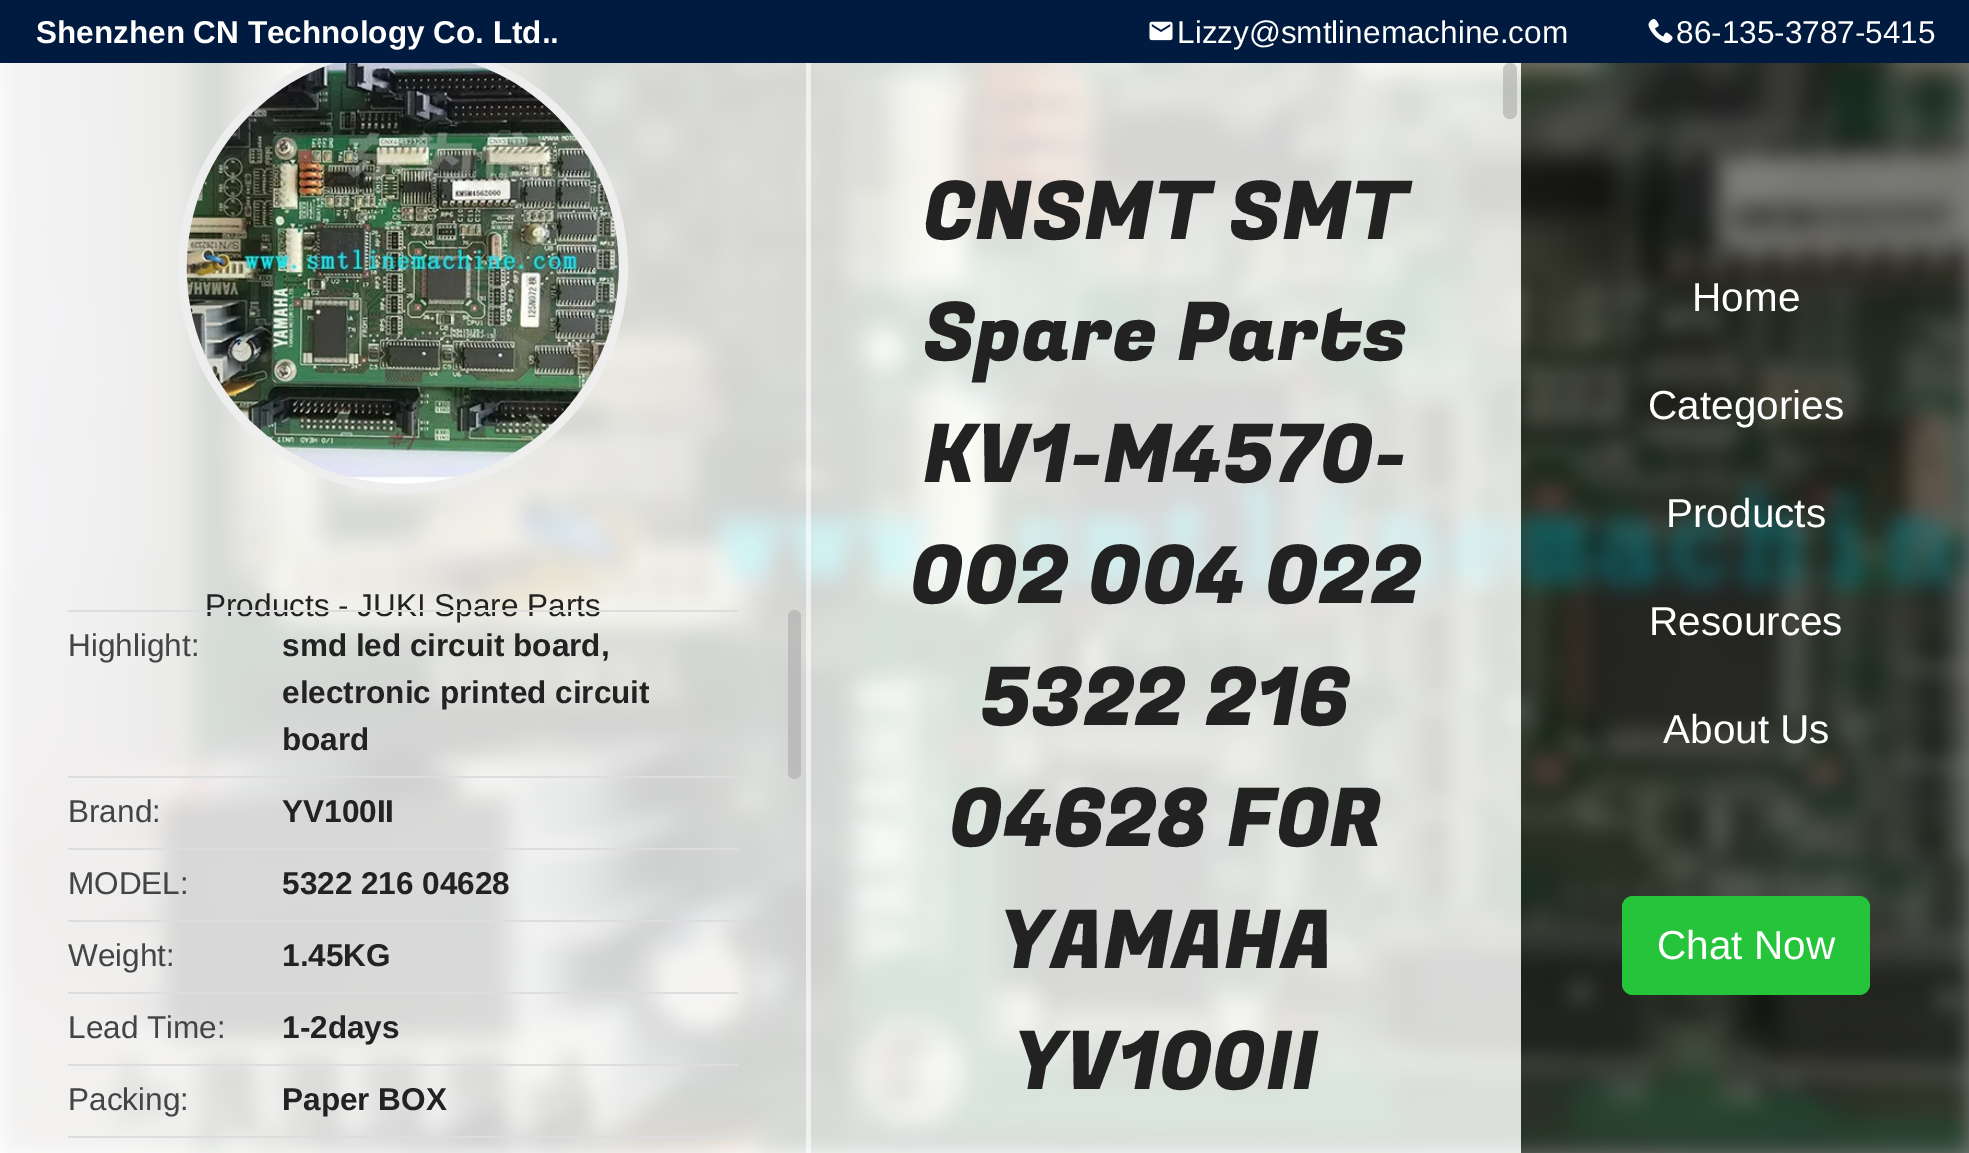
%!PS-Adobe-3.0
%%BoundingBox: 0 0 1969 1153
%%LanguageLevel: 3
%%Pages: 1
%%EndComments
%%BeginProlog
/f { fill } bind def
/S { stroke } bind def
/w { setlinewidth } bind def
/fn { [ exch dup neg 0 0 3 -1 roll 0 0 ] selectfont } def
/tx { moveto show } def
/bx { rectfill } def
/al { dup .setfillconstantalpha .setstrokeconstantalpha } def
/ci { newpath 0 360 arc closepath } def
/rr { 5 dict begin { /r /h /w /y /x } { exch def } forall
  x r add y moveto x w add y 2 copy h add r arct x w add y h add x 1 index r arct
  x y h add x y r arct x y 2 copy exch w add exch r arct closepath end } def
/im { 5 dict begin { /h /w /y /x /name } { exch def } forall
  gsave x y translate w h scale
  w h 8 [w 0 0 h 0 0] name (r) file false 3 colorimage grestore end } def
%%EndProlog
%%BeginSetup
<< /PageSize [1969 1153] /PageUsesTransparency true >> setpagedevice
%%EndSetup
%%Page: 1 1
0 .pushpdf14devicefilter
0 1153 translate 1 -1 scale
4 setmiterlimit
1 setgray
0 0 1969 1153 bx
(image2.raw) 0 63 1969 1090 im
0.8 al
0 63 810 1090 bx
1 al
0.933 setgray
9 w
403 268 220.5 ci S
0 0.106 0.247 setrgbcolor
0 0 1969 63 bx
/LiberationSans-Bold 31.5 fn
1 setgray
(Shenzhen CN Technology Co. Ltd..) 36 43 tx
(image0.raw) 1149 21 24 20 im
/LiberationSans-Regular 31.5 fn
(Lizzy@smtlinemachine.com) 1177 43 tx
(image1.raw) 1648 18 25 25 im
(86-135-3787-5415) 1676 43 tx
0.6 al
806 63 5 1090 bx
1 al
(image3.raw) 186 63 433 421 im
0.133 setgray
(Products - JUKI Spare Parts) 205 616 tx
0.867 setgray
68 610 670 2 bx
0.267 setgray
(Highlight:) 68 656 tx
/LiberationSans-Bold 31.5 fn
0.133 setgray
(smd led circuit board,) 282 656 tx
(electronic printed circuit) 282 703 tx
(board) 282 750 tx
0.867 setgray
68 776 670 2 bx
/LiberationSans-Regular 31.5 fn
0.267 setgray
(Brand:) 68 822 tx
/LiberationSans-Bold 31.5 fn
0.133 setgray
(YV100II) 282 822 tx
0.867 setgray
68 848 670 2 bx
/LiberationSans-Regular 31.5 fn
0.267 setgray
(MODEL:) 68 894 tx
/LiberationSans-Bold 31.5 fn
0.133 setgray
(5322 216 04628) 282 894 tx
0.867 setgray
68 920 670 2 bx
/LiberationSans-Regular 31.5 fn
0.267 setgray
(Weight:) 68 966 tx
/LiberationSans-Bold 31.5 fn
0.133 setgray
(1.45KG) 282 966 tx
0.867 setgray
68 992 670 2 bx
/LiberationSans-Regular 31.5 fn
0.267 setgray
(Lead Time:) 68 1038 tx
/LiberationSans-Bold 31.5 fn
0.133 setgray
(1-2days) 282 1038 tx
0.867 setgray
68 1064 670 2 bx
/LiberationSans-Regular 31.5 fn
0.267 setgray
(Packing:) 68 1110 tx
/LiberationSans-Bold 31.5 fn
0.133 setgray
(Paper BOX) 282 1110 tx
0.867 setgray
68 1136 670 2 bx
0.6 al
0.667 setgray
788 610 13 169 6.5 rr f
0.8 al
1 setgray
810 63 711 1090 bx
0.6 al
0.667 setgray
1503 63 14 56 7 rr f
/FugazOne-Regular 81 fn
1 al
0.133 setgray
(CNSMT SMT) 923 239 tx
(Spare Parts) 923 360 tx
(KV1-M4570-) 923 482 tx
(002 004 022) 910 603 tx
(5322 216) 980 725 tx
(04628 FOR) 949 846 tx
(YAMAHA) 999 968 tx
(YV100II) 1013 1089 tx
0.5 al
0 setgray
1521 63 448 1090 bx
/LiberationSans-Regular 40.5 fn
1 al
1 setgray
(Home) 1692 311 tx
(Categories) 1648 419 tx
(Products) 1666 527 tx
(Resources) 1649 635 tx
(About Us) 1663 743 tx
0.149 0.769 0.227 setrgbcolor
1622 896 248 99 11 rr f
1 setgray
(Chat Now) 1657 959 tx
.poppdf14devicefilter showpage
%%EOF
